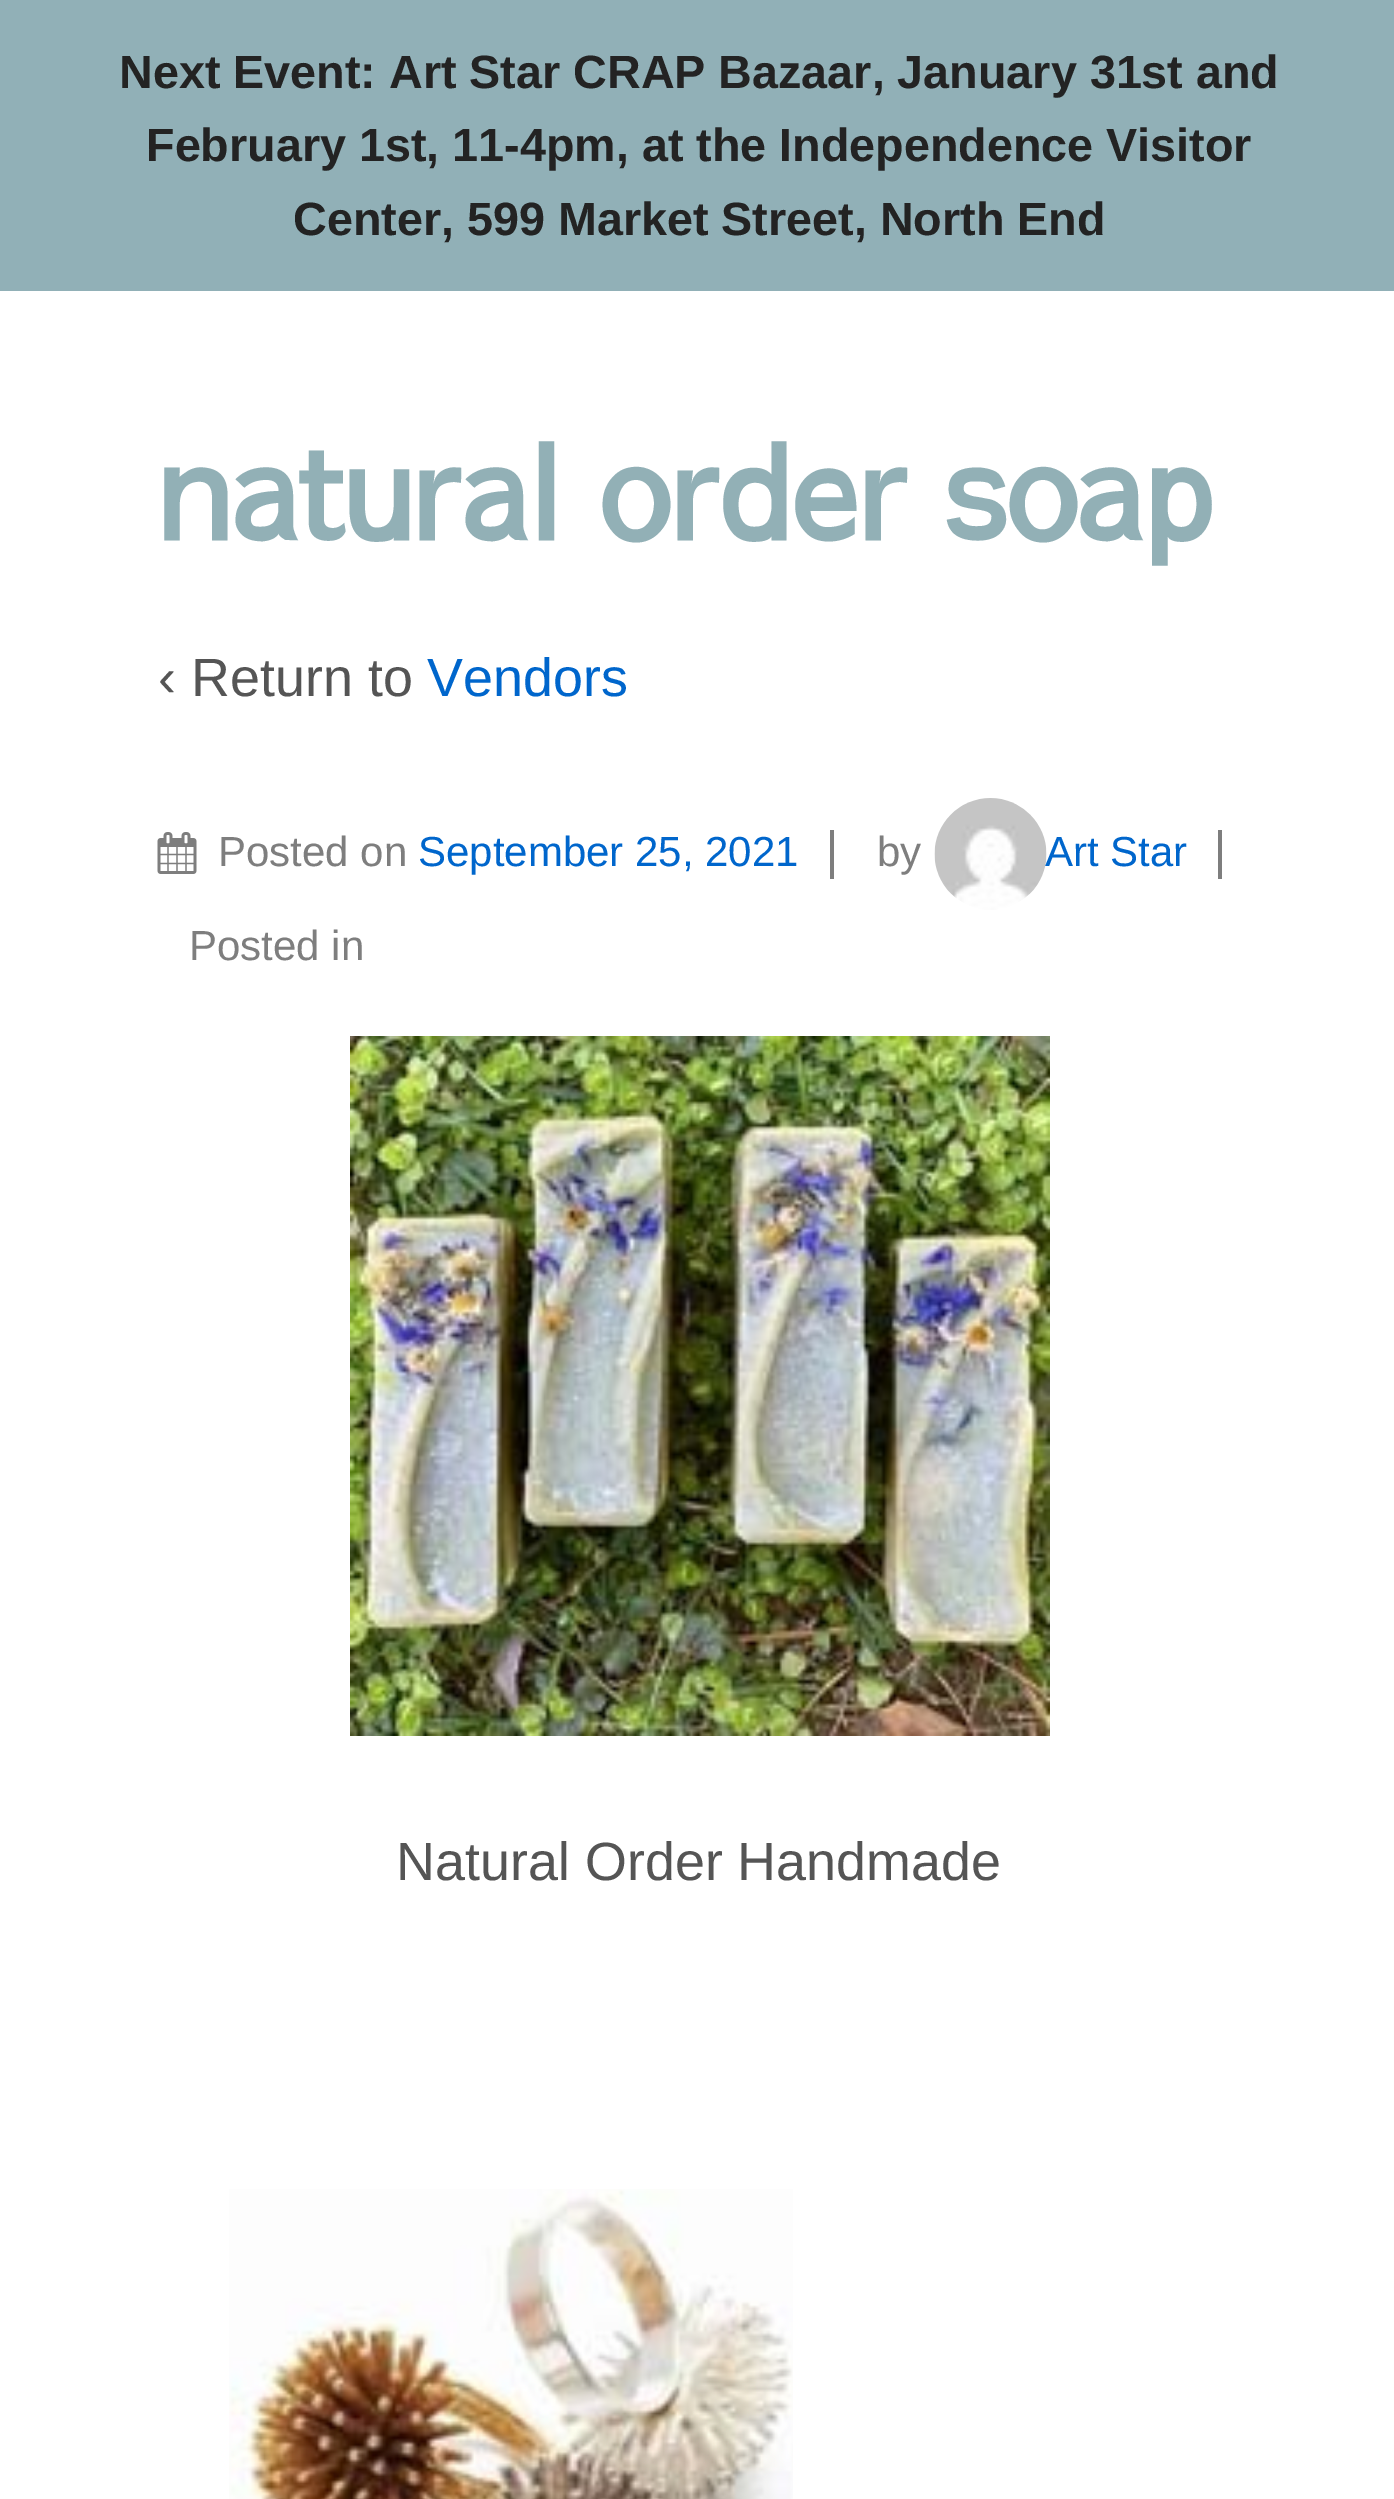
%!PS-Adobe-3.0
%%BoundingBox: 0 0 1394 2499
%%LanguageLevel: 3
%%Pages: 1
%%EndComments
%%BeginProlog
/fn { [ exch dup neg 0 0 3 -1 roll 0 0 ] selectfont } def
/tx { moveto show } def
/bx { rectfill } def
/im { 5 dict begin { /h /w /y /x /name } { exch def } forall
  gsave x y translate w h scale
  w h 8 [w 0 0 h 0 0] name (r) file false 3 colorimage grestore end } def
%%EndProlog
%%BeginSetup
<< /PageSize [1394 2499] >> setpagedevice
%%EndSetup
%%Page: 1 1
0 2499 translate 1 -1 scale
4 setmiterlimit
1 setgray
0 0 1394 2499 bx
0.569 0.69 0.718 setrgbcolor
0 0 1394 291 bx
/LiberationSans-Bold 46.7 fn
0.137 setgray
(Next Event: Art Star CRAP Bazaar, January 31st and) 119 88 tx
(February 1st, 11-4pm, at the Independence Visitor) 146 161 tx
(Center, 599 Market Street, North End) 293 235 tx
/SawarabiGothic-Bold 128.5 fn
0.573 0.69 0.714 setrgbcolor
(natural order soap) 158 540 tx
/LiberationSans-Regular 53.9 fn
0.333 setgray
(‹ Return to) 158 696 tx
0 0.4 0.8 setrgbcolor
(Vendors) 427 696 tx
(image0.raw) 157 832 40 42 im
/LiberationSans-Regular 42 fn
0.494 setgray
(Posted on) 218 866 tx
0 0.4 0.8 setrgbcolor
(September 25, 2021) 418 866 tx
0.494 setgray
830 830 4 49 bx
(by) 877 866 tx
(image1.raw) 934 798 113 112 im
0 0.4 0.8 setrgbcolor
(Art Star) 1045 866 tx
0.494 setgray
1218 830 4 49 bx
(Posted in) 189 960 tx
(image2.raw) 350 1036 700 700 im
/LiberationSans-Regular 53.9 fn
0.333 setgray
(Natural Order Handmade) 396 1880 tx
(image3.raw) 229 2189 564 310 im
showpage
%%EOF
